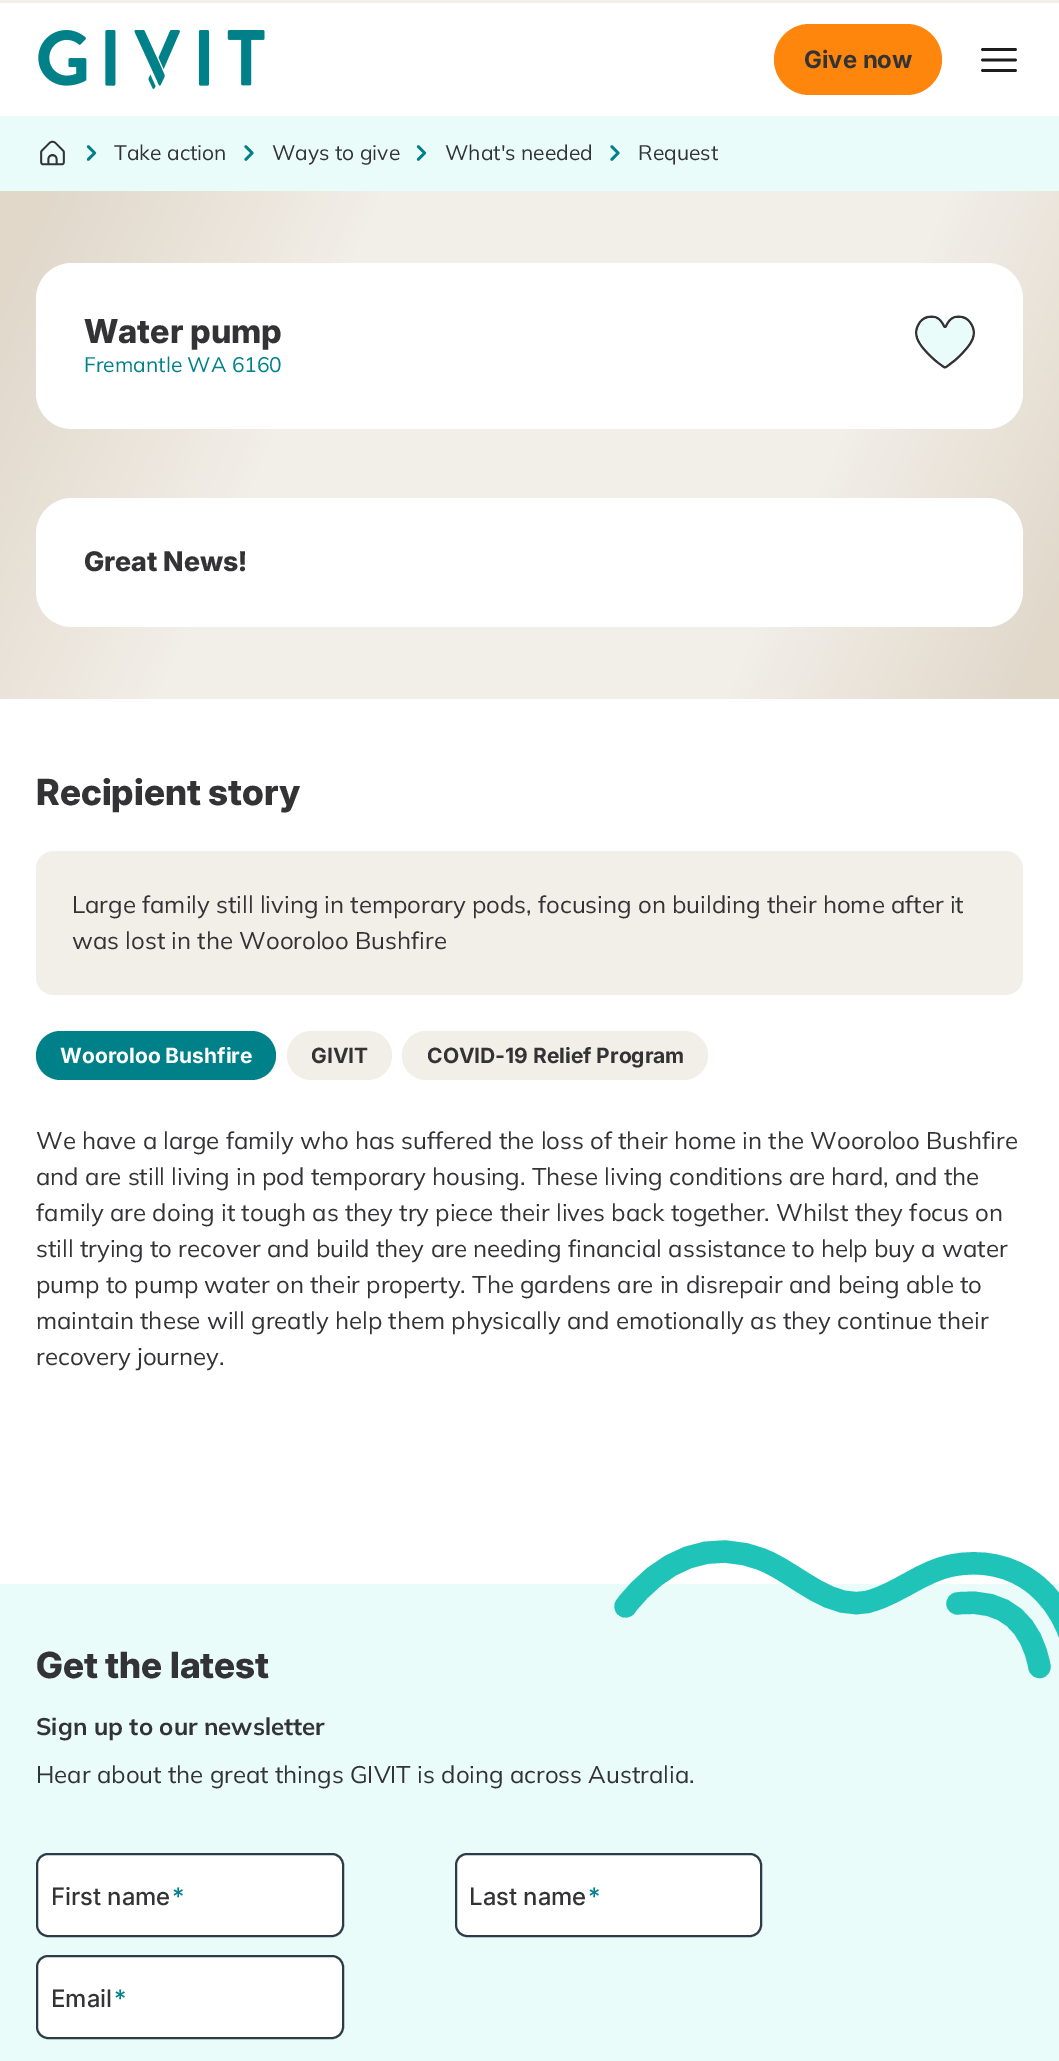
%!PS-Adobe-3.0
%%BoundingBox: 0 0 1059 2061
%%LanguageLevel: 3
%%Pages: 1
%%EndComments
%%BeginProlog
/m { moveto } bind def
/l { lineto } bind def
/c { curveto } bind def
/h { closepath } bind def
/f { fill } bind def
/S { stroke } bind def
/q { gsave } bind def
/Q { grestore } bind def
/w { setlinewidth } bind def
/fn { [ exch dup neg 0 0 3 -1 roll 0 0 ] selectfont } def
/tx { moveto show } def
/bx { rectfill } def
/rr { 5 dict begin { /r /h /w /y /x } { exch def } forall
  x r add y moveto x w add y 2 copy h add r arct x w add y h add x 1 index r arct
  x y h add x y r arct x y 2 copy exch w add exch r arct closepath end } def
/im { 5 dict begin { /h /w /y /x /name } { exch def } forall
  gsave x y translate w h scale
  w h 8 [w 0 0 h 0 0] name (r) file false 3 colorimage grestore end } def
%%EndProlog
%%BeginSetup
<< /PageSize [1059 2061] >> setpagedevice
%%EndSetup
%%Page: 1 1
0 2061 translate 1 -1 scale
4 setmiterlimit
1 setgray
0 0 1059 2061 bx
0.949 0.933 0.91 setrgbcolor
0 0 1059 3 bx
(image0.raw) 38 30 227 59 im
1 0.525 0.051 setrgbcolor
774 24 168 71 35.5 rr f
/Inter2-Bold 24 fn
0.2 0.2 0.212 setrgbcolor
(Give now) 804 68 tx
(image1.raw) 981 48 36 24 im
0.914 0.988 0.98 setrgbcolor
0 116 1059 75 bx
(image2.raw) 40 140 25 26 im
(image3.raw) 86 145 11 16 im
/Mulish-Regular 21 fn
0.2 0.2 0.212 setrgbcolor
(Take action) 114 160 tx
(image4.raw) 244 145 10 16 im
(Ways to give) 272 160 tx
(image3.raw) 416 145 11 16 im
(What's needed) 445 160 tx
(image4.raw) 610 145 10 16 im
(Request) 638 160 tx
q 0 191 m 1059 191 l 1059 699 l 0 699 l h clip newpath
<< /ShadingType 2 /ColorSpace /DeviceRGB /Coords [-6.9 206 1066 684] /Extend [true true] /Function << /FunctionType 3 /Domain [0 1] /Functions [<< /FunctionType 2 /Domain [0 1] /C0 [0.882 0.847 0.792] /C1 [0.882 0.847 0.792] /N 1 >> << /FunctionType 2 /Domain [0 1] /C0 [0.882 0.847 0.792] /C1 [0.949 0.933 0.91] /N 1 >> << /FunctionType 2 /Domain [0 1] /C0 [0.949 0.933 0.91] /C1 [0.949 0.933 0.91] /N 1 >> << /FunctionType 2 /Domain [0 1] /C0 [0.949 0.933 0.91] /C1 [0.882 0.847 0.792] /N 1 >> << /FunctionType 2 /Domain [0 1] /C0 [0.882 0.847 0.792] /C1 [0.882 0.847 0.792] /N 1 >>] /Bounds [0.04 0.3 0.74 0.97] /Encode [0 1 0 1 0 1 0 1 0 1] >> >> shfill Q
1 setgray
36 263 987 166 36 rr f
/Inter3-ExtraBold 33 fn
0.2 0.2 0.212 setrgbcolor
(Water pump) 84 343 tx
/Mulish-Regular 21 fn
0 0.506 0.537 setrgbcolor
(Fremantle WA 6160) 84 372 tx
(image5.raw) 915 315 60 54 im
1 setgray
36 498 987 129 36 rr f
/Inter-ExtraBold 27 fn
0.2 0.2 0.212 setrgbcolor
(Great News!) 84 571 tx
/Inter2-ExtraBold 36 fn
(Recipient story) 36 805 tx
0.949 0.933 0.91 setrgbcolor
36 851 987 144 18 rr f
/Mulish-Regular 24 fn
0.2 0.2 0.212 setrgbcolor
(Large family still living in temporary pods, focusing on building their home after it) 72 913 tx
(was lost in the Wooroloo Bushfire) 72 949 tx
0 0.506 0.537 setrgbcolor
36 1031 240 49 24.5 rr f
/Inter-Bold 21 fn
1 setgray
(Wooroloo Bushfire) 60 1063 tx
0.949 0.933 0.91 setrgbcolor
287 1031 105 49 24.5 rr f
0.2 0.2 0.212 setrgbcolor
(GIVIT) 311 1063 tx
0.949 0.933 0.91 setrgbcolor
402 1031 306 49 24.5 rr f
0.2 0.2 0.212 setrgbcolor
(COVID-19 Relief Program) 427 1063 tx
/Mulish-Regular 24 fn
(We have a large family who has suffered the loss of their home in the Wooroloo Bushfire) 36 1149 tx
(and are still living in pod temporary housing. These living conditions are hard, and the) 36 1185 tx
(family are doing it tough as they try piece their lives back together. Whilst they focus on) 36 1221 tx
(still trying to recover and build they are needing financial assistance to help buy a water) 36 1257 tx
(pump to pump water on their property. The gardens are in disrepair and being able to) 36 1293 tx
(maintain these will greatly help them physically and emotionally as they continue their) 36 1329 tx
(recovery journey.) 36 1365 tx
0.914 0.988 0.98 setrgbcolor
0 1584 1059 477 bx
q
734.5 1394.5 m 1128 1621.5 l 1004 1837 l 610.5 1610 l h clip newpath
0.125 0.765 0.722 setrgbcolor
22.3 w
1 setlinecap
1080 1682.5 m 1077.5 1646 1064 1607 1034.5 1584 c 1012 1565.5 980.5 1559.5 952 1565.5 c 922.5 1571 899 1593 870.5 1601 c 832 1612.5 798.5 1575 765.5 1561 c 710 1537 660.5 1560.5 625.5 1606.5 c S
Q
0.125 0.765 0.722 setrgbcolor
22.3 w
1 setlinecap
1039.5 1667 m 1032 1625.5 1006.5 1597.5 957.5 1603.5 c S
/Inter2-ExtraBold 36 fn
0.2 0.2 0.212 setrgbcolor
(Get the latest) 36 1678 tx
/Mulish-Bold 24 fn
(Sign up to our newsletter) 36 1735 tx
/Mulish-Regular 24 fn
(Hear about the great things GIVIT is doing across Australia.) 36 1783 tx
1 setgray
37 1854 306 82 11 rr q f Q
0.169 0.235 0.278 setrgbcolor
2 w
0 setlinecap
S
/Inter-Medium 24 fn
0.2 0.2 0.212 setrgbcolor
(First name) 51 1905 tx
0 0.506 0.537 setrgbcolor
(*) 172 1905 tx
1 setgray
456 1854 305 82 11 rr q f Q
0.169 0.235 0.278 setrgbcolor
S
0.2 0.2 0.212 setrgbcolor
(Last name) 469 1905 tx
0 0.506 0.537 setrgbcolor
(*) 588 1905 tx
1 setgray
37 1956 306 82 11 rr q f Q
0.169 0.235 0.278 setrgbcolor
S
0.2 0.2 0.212 setrgbcolor
(Email) 51 2007 tx
0 0.506 0.537 setrgbcolor
(*) 114 2007 tx
showpage
%%EOF
